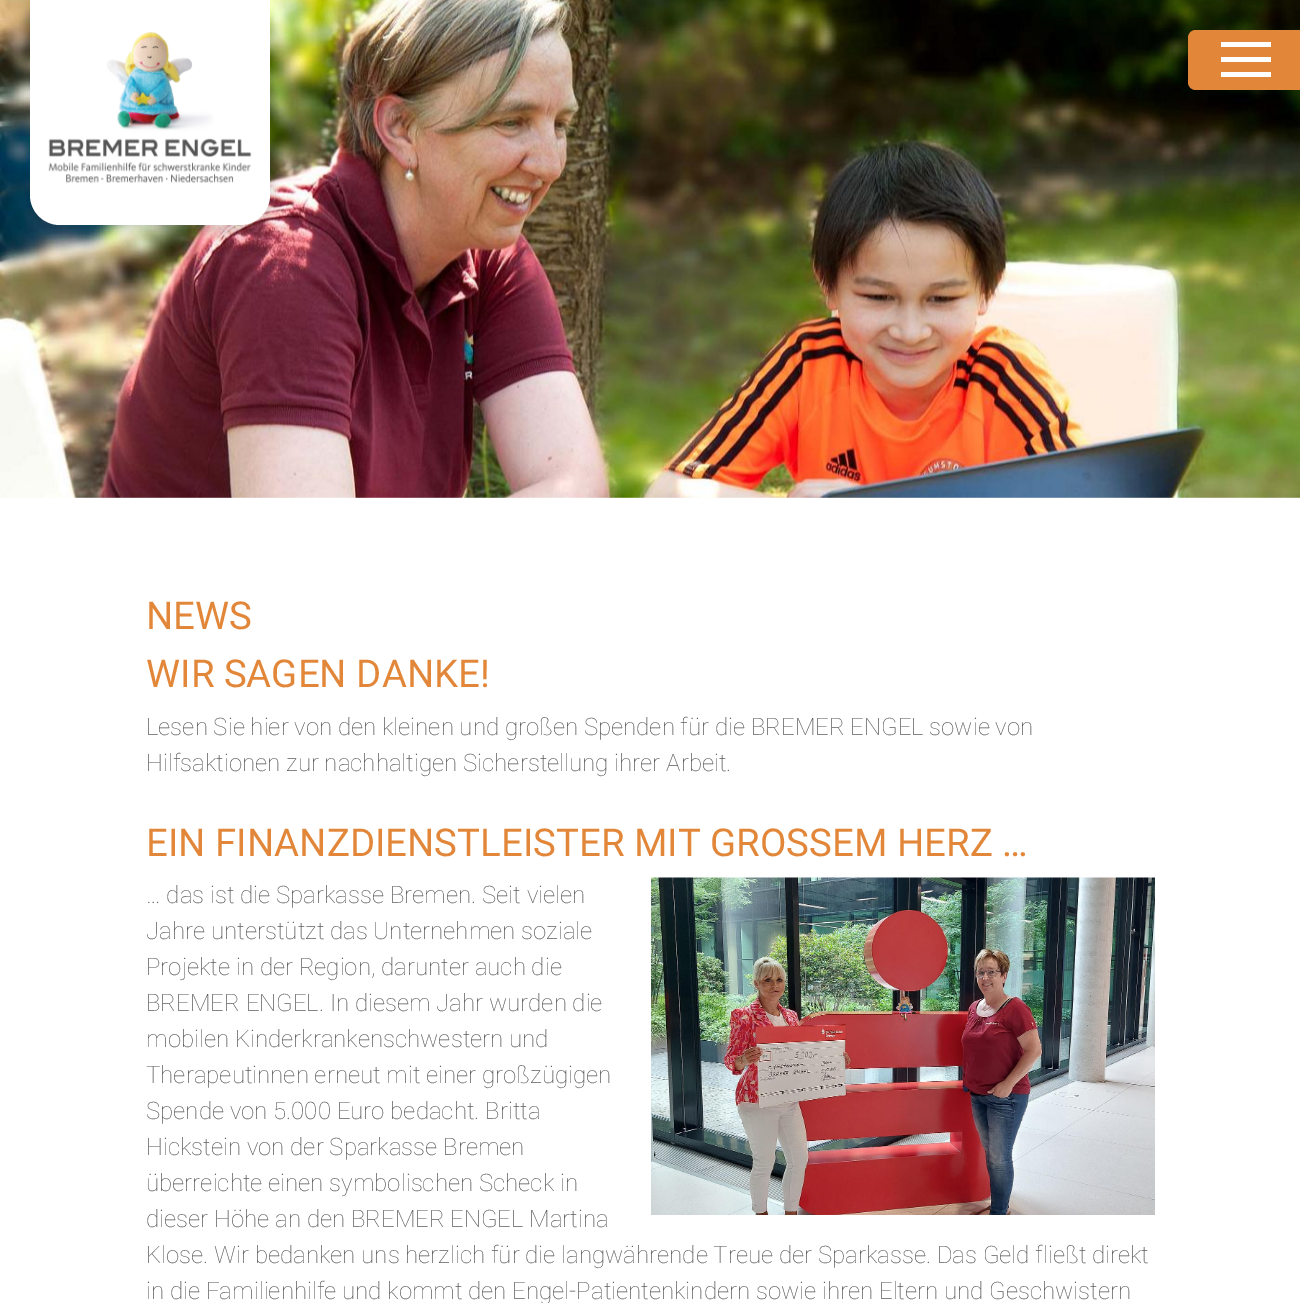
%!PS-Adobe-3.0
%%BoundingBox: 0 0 1300 1303
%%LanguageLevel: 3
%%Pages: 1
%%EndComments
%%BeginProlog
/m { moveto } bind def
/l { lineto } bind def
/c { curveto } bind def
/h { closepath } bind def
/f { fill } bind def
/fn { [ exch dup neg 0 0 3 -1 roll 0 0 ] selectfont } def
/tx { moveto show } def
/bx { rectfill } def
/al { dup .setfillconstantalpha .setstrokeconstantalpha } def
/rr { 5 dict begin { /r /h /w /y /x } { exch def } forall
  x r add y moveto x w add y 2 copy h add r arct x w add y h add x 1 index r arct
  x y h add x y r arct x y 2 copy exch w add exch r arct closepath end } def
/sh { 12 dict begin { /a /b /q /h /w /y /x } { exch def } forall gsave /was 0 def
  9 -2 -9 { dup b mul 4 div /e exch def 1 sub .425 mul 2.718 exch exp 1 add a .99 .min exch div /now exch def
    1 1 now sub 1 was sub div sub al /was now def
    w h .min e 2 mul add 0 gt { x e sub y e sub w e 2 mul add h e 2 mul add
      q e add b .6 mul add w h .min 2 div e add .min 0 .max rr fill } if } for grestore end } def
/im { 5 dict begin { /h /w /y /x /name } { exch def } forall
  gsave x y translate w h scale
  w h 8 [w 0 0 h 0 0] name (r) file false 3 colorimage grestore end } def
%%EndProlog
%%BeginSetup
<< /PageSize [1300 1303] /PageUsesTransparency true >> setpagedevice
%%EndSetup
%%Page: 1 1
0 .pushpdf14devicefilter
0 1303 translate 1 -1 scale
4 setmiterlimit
1 setgray
0 0 1300 1303 bx
(image0.raw) 0 0 1300 498 im
0 setgray
26 -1 249 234 35 4 0.1 sh
1 setgray
30 0 m 270 0 l 270 195 l 270 211.5 256.5 225 240 225 c 60 225 l 43.5 225 30 211.5 30 195 c h f
(image1.raw) 48 31 204 152 im
0.886 0.529 0.224 setrgbcolor
1196 30 m 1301 30 l 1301 90 l 1196 90 l 1191.5 90 1188 86.5 1188 82 c 1188 38 l 1188 33.5 1191.5 30 1196 30 c h f
1 setgray
1221 57 50 5 bx
1221 42 50 5 bx
1221 72 50 5 bx
/Roboto-Regular 38.4 fn
0.886 0.529 0.224 setrgbcolor
(NEWS) 146 629 tx
(WIR SAGEN DANKE!) 146 687 tx
/Roboto-Thin 24 fn
0.341 0.345 0.353 setrgbcolor
(Lesen Sie hier von den kleinen und großen Spenden für die BREMER ENGEL sowie von) 146 735 tx
(Hilfsaktionen zur nachhaltigen Sicherstellung ihrer Arbeit.) 146 771 tx
/Roboto-Regular 38.4 fn
0.886 0.529 0.224 setrgbcolor
(EIN FINANZDIENSTLEISTER MIT GROSSEM HERZ …) 146 856 tx
(image2.raw) 651 877 504 338 im
/Roboto-Thin 24 fn
0.341 0.345 0.353 setrgbcolor
(… das ist die Sparkasse Bremen. Seit vielen) 146 903 tx
(Jahre unterstützt das Unternehmen soziale) 146 939 tx
(Projekte in der Region, darunter auch die) 146 975 tx
(BREMER ENGEL. In diesem Jahr wurden die) 146 1011 tx
(mobilen Kinderkrankenschwestern und) 146 1047 tx
(Therapeutinnen erneut mit einer großzügigen) 146 1083 tx
(Spende von 5.000 Euro bedacht. Britta) 146 1119 tx
(Hickstein von der Sparkasse Bremen) 146 1155 tx
(überreichte einen symbolischen Scheck in) 146 1191 tx
(dieser Höhe an den BREMER ENGEL Martina) 146 1227 tx
(Klose. Wir bedanken uns herzlich für die langwährende Treue der Sparkasse. Das Geld fließt direkt) 146 1263 tx
(in die Familienhilfe und kommt den Engel-Patientenkindern sowie ihren Eltern und Geschwistern) 146 1299 tx
.poppdf14devicefilter showpage
%%EOF
